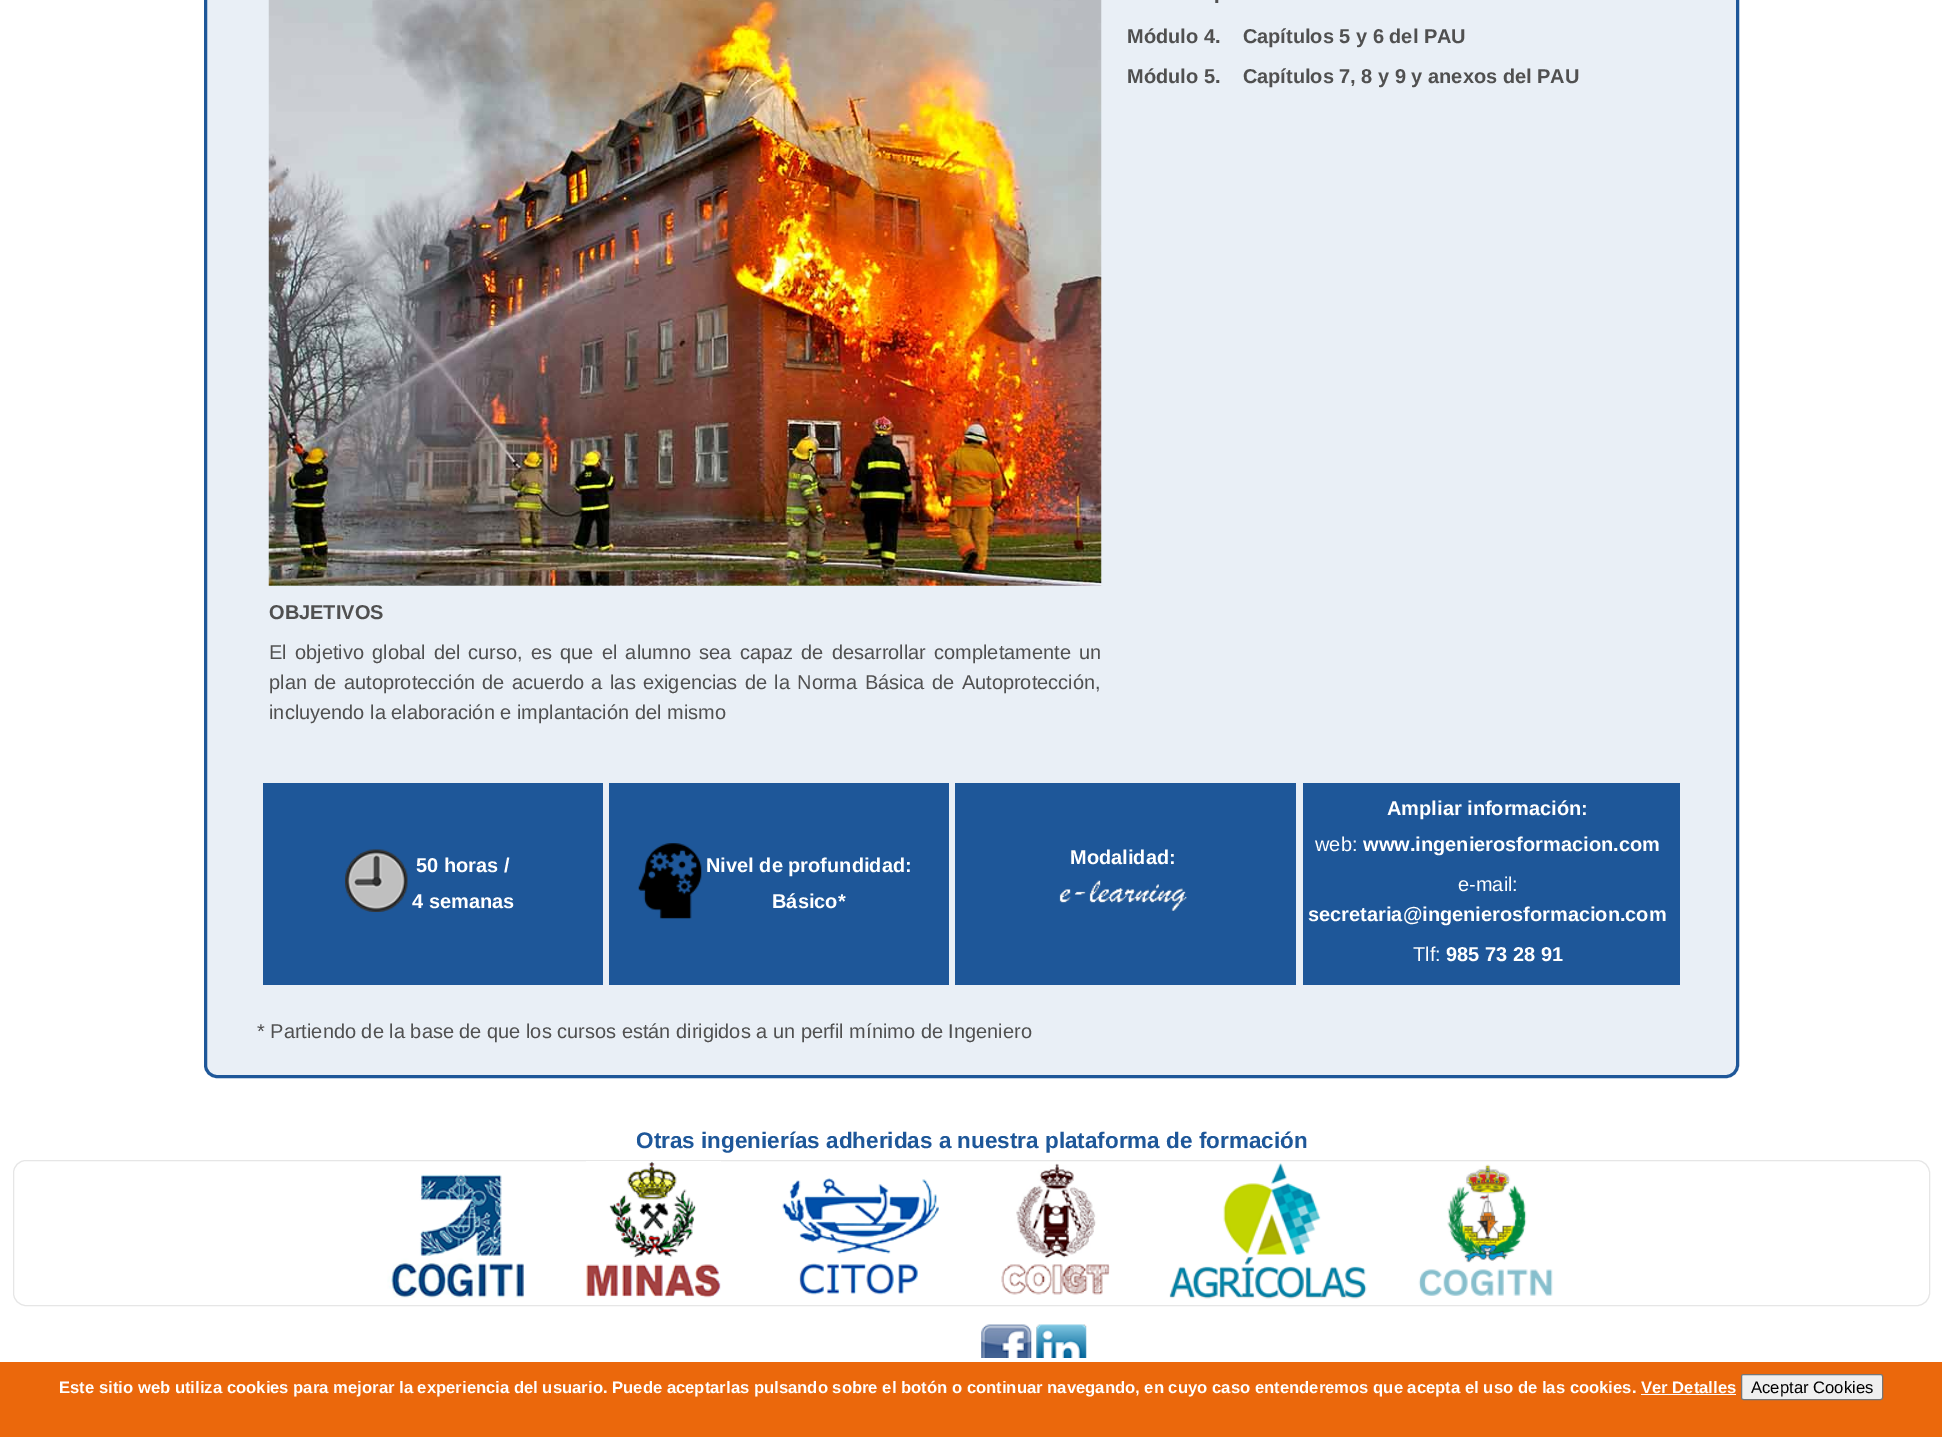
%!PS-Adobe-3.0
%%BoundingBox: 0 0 1942 1437
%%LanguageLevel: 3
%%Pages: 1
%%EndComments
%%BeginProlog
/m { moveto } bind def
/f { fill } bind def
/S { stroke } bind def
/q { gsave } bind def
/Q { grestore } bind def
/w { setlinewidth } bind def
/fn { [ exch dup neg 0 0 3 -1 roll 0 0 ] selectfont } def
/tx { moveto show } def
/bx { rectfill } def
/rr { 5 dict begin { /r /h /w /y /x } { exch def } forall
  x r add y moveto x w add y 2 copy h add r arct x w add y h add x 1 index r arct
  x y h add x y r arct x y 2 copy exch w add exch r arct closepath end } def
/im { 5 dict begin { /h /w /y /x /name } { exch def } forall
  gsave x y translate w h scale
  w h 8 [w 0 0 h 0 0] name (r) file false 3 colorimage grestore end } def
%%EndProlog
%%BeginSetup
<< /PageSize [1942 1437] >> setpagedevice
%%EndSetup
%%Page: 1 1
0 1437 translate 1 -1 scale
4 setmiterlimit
1 setgray
0 0 1942 1437 bx
0.914 0.937 0.965 setrgbcolor
205.5 -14.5 1532 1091 11.5 rr q f Q
0.118 0.341 0.6 setrgbcolor
3 w
S
/LiberationSans-Bold 20 fn
0.314 setgray
(.) 1214 3 tx
(Módulo 4.    Capítulos 5 y 6 del PAU) 1127 43 tx
(Módulo 5.    Capítulos 7, 8 y 9 y anexos del PAU) 1127 83 tx
(image0.raw) 268 0 834 586 im
(OBJETIVOS) 269 619 tx
/LiberationSans-Regular 20 fn
269 659 m 2.6 0 32 (El objetivo global del curso, es que el alumno sea capaz de desarrollar completamente un) widthshow
269 689 m 1.8 0 32 (plan de autoprotección de acuerdo a las exigencias de la Norma Básica de Autoprotección,) widthshow
(incluyendo la elaboración e implantación del mismo) 269 719 tx
0.118 0.341 0.6 setrgbcolor
263 783 340 202 bx
(image1.raw) 345 849 63 63 im
/LiberationSans-Bold 20 fn
1 setgray
(50 horas /) 416 872 tx
(4 semanas) 412 908 tx
0.118 0.341 0.6 setrgbcolor
609 783 340 202 bx
(image2.raw) 638 843 64 76 im
1 setgray
(Nivel de profundidad:) 706 872 tx
(Básico*) 772 908 tx
0.118 0.341 0.6 setrgbcolor
955 783 341 202 bx
1 setgray
(Modalidad:) 1070 864 tx
(image3.raw) 1059 880 128 31 im
0.118 0.341 0.6 setrgbcolor
1303 783 377 202 bx
1 setgray
(Ampliar información:) 1387 815 tx
/LiberationSans-Regular 20 fn
(web:) 1315 851 tx
/LiberationSans-Bold 20 fn
(www.ingenierosformacion.com) 1363 851 tx
/LiberationSans-Regular 20 fn
(e-mail:) 1458 891 tx
/LiberationSans-Bold 20 fn
(secretaria@ingenierosformacion.com) 1308 921 tx
/LiberationSans-Regular 20 fn
(Tlf:) 1413 961 tx
/LiberationSans-Bold 20 fn
(985 73 28 91) 1446 961 tx
/LiberationSans-Regular 20 fn
0.314 setgray
(* Partiendo de la base de que los cursos están dirigidos a un perfil mínimo de Ingeniero) 257 1038 tx
/LiberationSans-Bold 22.5 fn
0.118 0.341 0.6 setrgbcolor
(Otras ingenierías adheridas a nuestra plataforma de formación) 636 1148 tx
0.902 setgray
1 w
13.5 1160.5 1916 145 12.5 rr S
(image4.raw) 387 1174 137 124 im
(image5.raw) 586 1161 135 137 im
(image6.raw) 782 1178 157 117 im
(image7.raw) 1001 1163 109 132 im
(image8.raw) 1169 1163 198 136 im
(image9.raw) 1418 1164 135 132 im
(image10.raw) 981 1324 51 34 im
(image11.raw) 1036 1324 51 34 im
0.922 0.408 0.047 setrgbcolor
0 1362 1942 75 bx
/LiberationSans-Bold 16.67 fn
1 setgray
(Este sitio web utiliza cookies para mejorar la experiencia del usuario. Puede aceptarlas pulsando sobre el botón o continuar navegando, en cuyo caso entenderemos que acepta el uso de las cookies. Ver Detalles) 59 1393 tx
0.937 setgray
1741.5 1374.5 141 25 2 rr q f Q
0.463 setgray
S
/LiberationSans-Regular 16.67 fn
0 setgray
(Aceptar Cookies) 1751 1393 tx
1 setgray
1641 1394 95 1 bx
showpage
%%EOF
